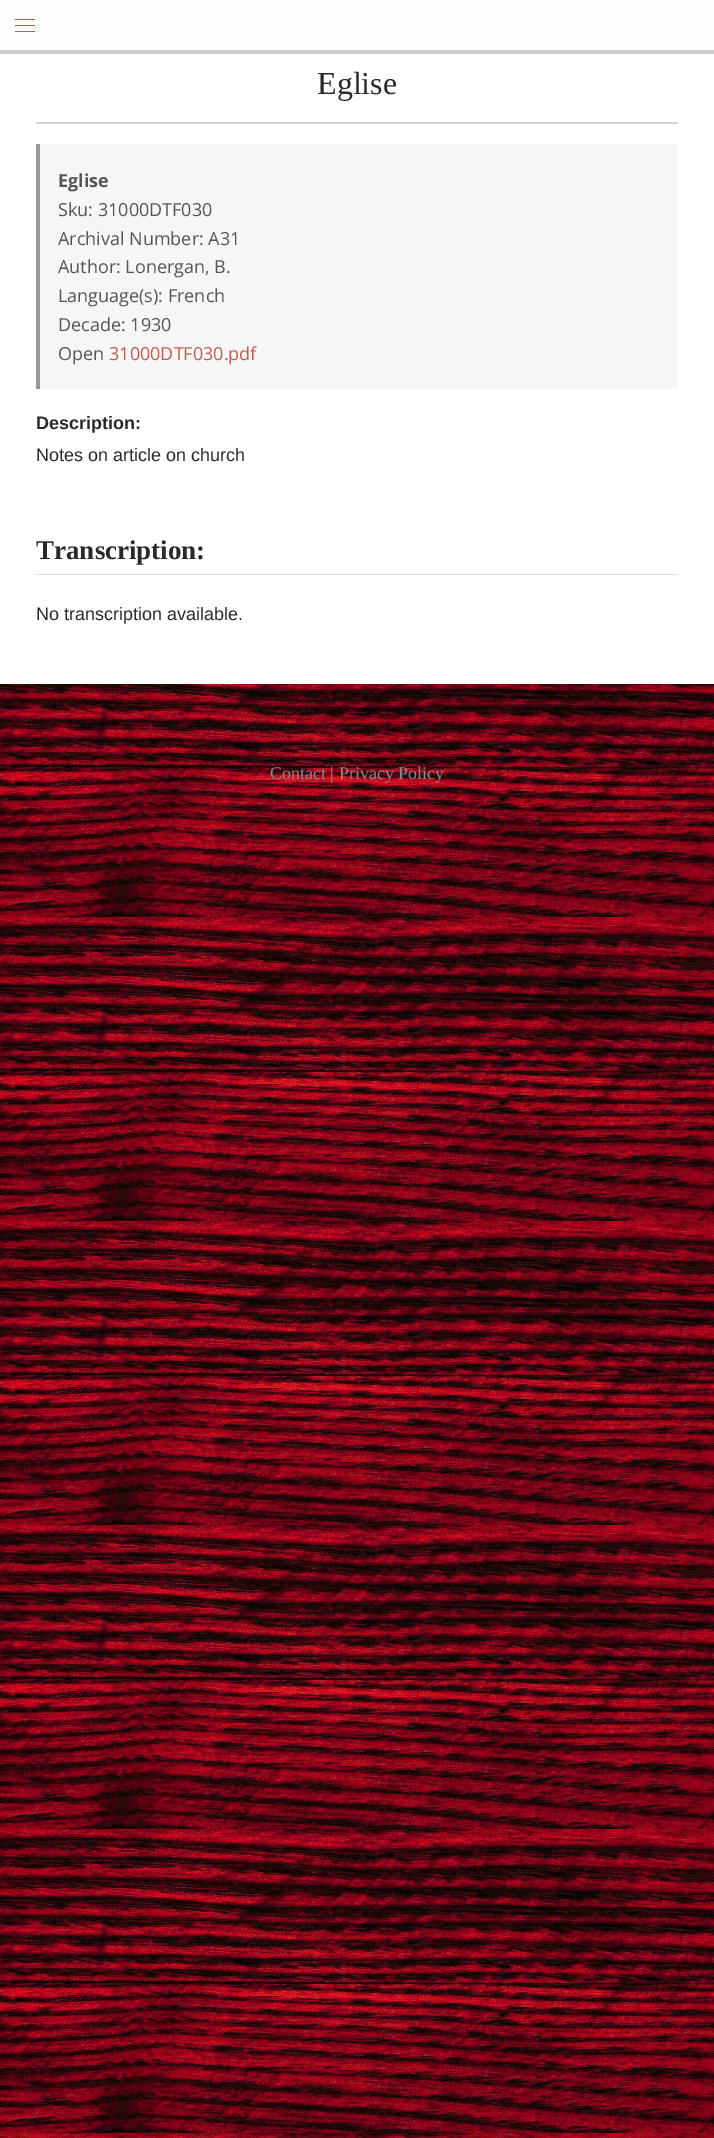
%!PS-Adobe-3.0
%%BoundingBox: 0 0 714 2138
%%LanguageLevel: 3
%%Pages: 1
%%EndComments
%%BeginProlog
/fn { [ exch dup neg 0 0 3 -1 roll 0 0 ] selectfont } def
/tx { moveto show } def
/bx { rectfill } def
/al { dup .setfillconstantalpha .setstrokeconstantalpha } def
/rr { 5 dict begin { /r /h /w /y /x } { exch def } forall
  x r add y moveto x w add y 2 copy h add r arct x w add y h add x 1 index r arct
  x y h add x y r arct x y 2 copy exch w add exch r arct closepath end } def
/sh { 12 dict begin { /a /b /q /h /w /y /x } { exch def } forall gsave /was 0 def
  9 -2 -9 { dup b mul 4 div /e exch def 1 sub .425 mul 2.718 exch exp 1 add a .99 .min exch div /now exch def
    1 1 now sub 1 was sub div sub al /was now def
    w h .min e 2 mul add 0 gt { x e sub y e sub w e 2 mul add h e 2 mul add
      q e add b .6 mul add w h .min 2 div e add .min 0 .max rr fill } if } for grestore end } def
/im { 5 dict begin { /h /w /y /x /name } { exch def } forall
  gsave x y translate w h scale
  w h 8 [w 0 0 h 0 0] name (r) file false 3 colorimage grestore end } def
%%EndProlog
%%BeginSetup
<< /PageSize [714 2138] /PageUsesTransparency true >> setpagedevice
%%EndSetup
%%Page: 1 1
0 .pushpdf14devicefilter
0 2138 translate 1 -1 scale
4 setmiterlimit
1 setgray
0 0 714 2138 bx
(image0.raw) 0 684 714 1454 im
0.8 setgray
0 50 714 4 bx
0.792 setgray
0 2 714 50 0 1 1 sh
0.996 setgray
0 1 714 49 bx
0.753 0.357 0.302 setrgbcolor
15 19 20 1 bx
15 25 20 1 bx
15 31 20 1 bx
0.827 setgray
36 122 642 2 bx
/LiberationSerif-Regular 32 fn
0.161 setgray
(Eglise) 317 94 tx
0.965 setgray
40 144 638 245 bx
0.6 setgray
36 144 4 245 bx
/OpenSans-Bold 18 fn
0.333 setgray
(Eglise) 58 187 tx
/OpenSans-Regular 18 fn
(Sku: 31000DTF030) 58 216 tx
(Archival Number: A31) 58 245 tx
(Author: Lonergan, B.) 58 273 tx
(Language\(s\): French) 58 302 tx
(Decade: 1930) 58 331 tx
(Open) 58 360 tx
0.753 0.357 0.302 setrgbcolor
(31000DTF030.pdf) 109 360 tx
/LiberationSans-Bold 18 fn
0.161 setgray
(Description:) 36 429 tx
/LiberationSans-Regular 18 fn
(Notes on article on church) 36 461 tx
0.867 setgray
36 574 642 1 bx
/LiberationSerif-Bold 27 fn
0.161 setgray
(Transcription:) 36 559 tx
/LiberationSans-Regular 18 fn
(No transcription available.) 36 620 tx
/LiberationSerif-Regular 18 fn
0.541 setgray
(Contact | Privacy Policy) 270 779 tx
.poppdf14devicefilter showpage
%%EOF
